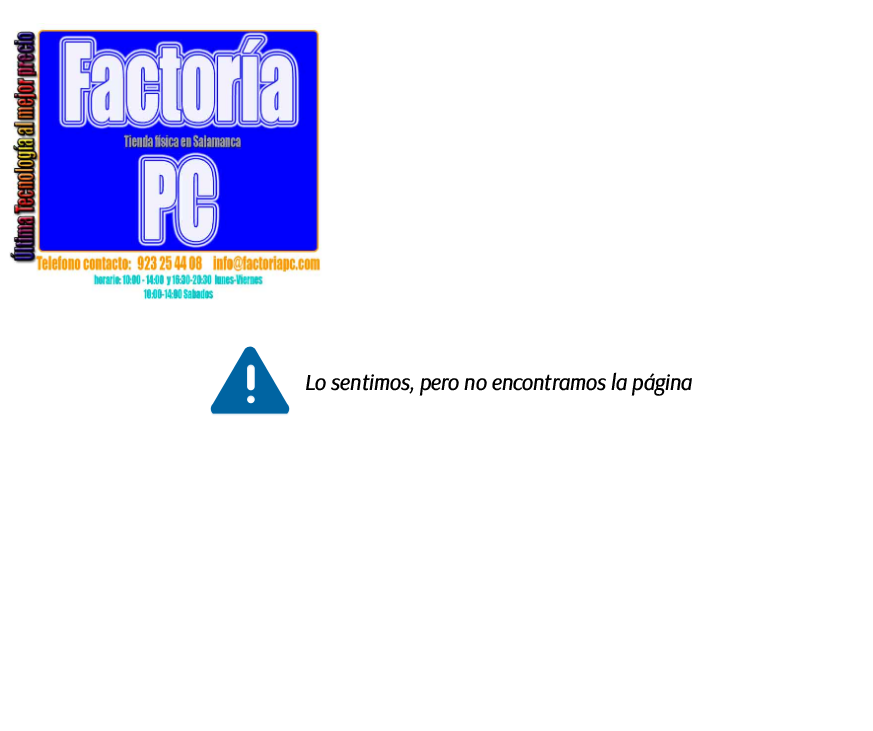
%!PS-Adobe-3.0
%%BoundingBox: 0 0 873 731
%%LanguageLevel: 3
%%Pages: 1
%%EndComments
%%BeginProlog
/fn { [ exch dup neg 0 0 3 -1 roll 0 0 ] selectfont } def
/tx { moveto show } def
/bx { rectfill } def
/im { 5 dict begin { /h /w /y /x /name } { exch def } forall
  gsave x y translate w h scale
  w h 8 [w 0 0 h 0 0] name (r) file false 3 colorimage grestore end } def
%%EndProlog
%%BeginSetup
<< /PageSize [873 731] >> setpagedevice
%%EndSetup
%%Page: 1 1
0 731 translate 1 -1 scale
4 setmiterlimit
1 setgray
0 0 873 731 bx
(image0.raw) 9 23 313 277 im
(image1.raw) 210 346 80 70 im
/Arsenal-BoldItalic 22 fn
0 setgray
(Lo sentimos, pero no encontramos la página) 304 390 tx
showpage
%%EOF
